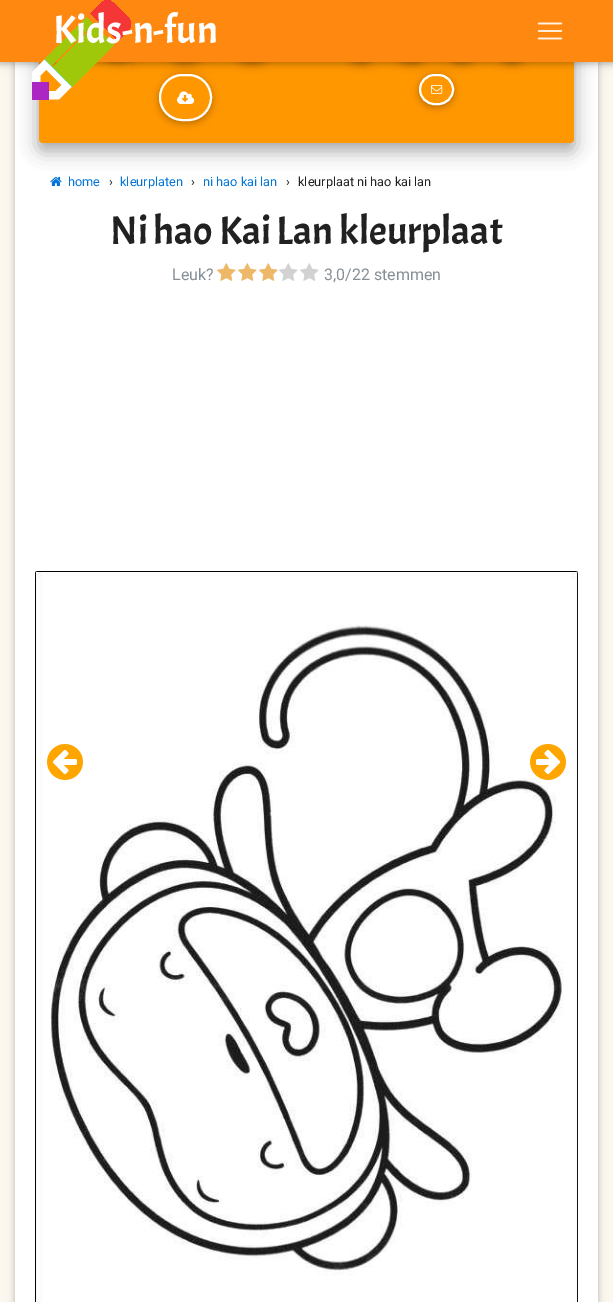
%!PS-Adobe-3.0
%%BoundingBox: 0 0 613 1302
%%LanguageLevel: 3
%%Pages: 1
%%EndComments
%%BeginProlog
/m { moveto } bind def
/l { lineto } bind def
/c { curveto } bind def
/h { closepath } bind def
/f { fill } bind def
/S { stroke } bind def
/q { gsave } bind def
/Q { grestore } bind def
/w { setlinewidth } bind def
/fn { [ exch dup neg 0 0 3 -1 roll 0 0 ] selectfont } def
/tx { moveto show } def
/bx { rectfill } def
/al { dup .setfillconstantalpha .setstrokeconstantalpha } def
/rr { 5 dict begin { /r /h /w /y /x } { exch def } forall
  x r add y moveto x w add y 2 copy h add r arct x w add y h add x 1 index r arct
  x y h add x y r arct x y 2 copy exch w add exch r arct closepath end } def
/sh { 12 dict begin { /a /b /q /h /w /y /x } { exch def } forall gsave /was 0 def
  9 -2 -9 { dup b mul 4 div /e exch def 1 sub .425 mul 2.718 exch exp 1 add a .99 .min exch div /now exch def
    1 1 now sub 1 was sub div sub al /was now def
    w h .min e 2 mul add 0 gt { x e sub y e sub w e 2 mul add h e 2 mul add
      q e add b .6 mul add w h .min 2 div e add .min 0 .max rr fill } if } for grestore end } def
/im { 5 dict begin { /h /w /y /x /name } { exch def } forall
  gsave x y translate w h scale
  w h 8 [w 0 0 h 0 0] name (r) file false 3 colorimage grestore end } def
%%EndProlog
%%BeginSetup
<< /PageSize [613 1302] /PageUsesTransparency true >> setpagedevice
%%EndSetup
%%Page: 1 1
0 .pushpdf14devicefilter
0 1302 translate 1 -1 scale
4 setmiterlimit
0.988 0.969 0.937 setrgbcolor
0 0 613 1302 bx
0 setgray
15 14 583 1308 5 5 0.12 sh
15 14 583 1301 5 2.5 0.16 sh
1 setgray
15 62 583 1240 bx
0 setgray
39 -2 535 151 4 10 0.19 sh
39 0 535 151 4 8.5 0.2 sh
1 0.596 0 setrgbcolor
39 -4 535 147 4 rr f
0 setgray
93 16 51 48 24 5 0.12 sh
160 16 51 48 24 5 0.12 sh
227 16 50 48 24 5 0.12 sh
q
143 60 m 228 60 l 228 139 l 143 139 l h 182.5 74 m 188.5 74 l 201.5 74 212 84.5 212 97.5 c 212 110.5 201.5 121 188.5 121 c 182.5 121 l 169.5 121 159 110.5 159 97.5 c 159 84.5 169.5 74 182.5 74 c h eoclip newpath
159 76 53 47 23.5 5 0.12 sh
Q
q
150 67 m 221 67 l 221 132 l 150 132 l h 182.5 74 m 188.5 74 l 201.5 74 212 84.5 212 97.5 c 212 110.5 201.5 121 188.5 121 c 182.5 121 l 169.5 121 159 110.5 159 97.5 c 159 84.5 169.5 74 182.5 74 c h eoclip newpath
159 76 53 47 23.5 2.5 0.16 sh
Q
1 setgray
2 w
160 75 51 45 22.5 rr S
0 setgray
394 32 35 32 16 5 0.12 sh
445 32 34 32 16 5 0.12 sh
q
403 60 m 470 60 l 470 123 l 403 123 l h 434.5 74 m 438.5 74 l 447 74 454 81 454 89.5 c 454 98 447 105 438.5 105 c 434.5 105 l 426 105 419 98 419 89.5 c 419 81 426 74 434.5 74 c h eoclip newpath
419 76 35 31 15.5 5 0.12 sh
Q
q
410 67 m 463 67 l 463 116 l 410 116 l h 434.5 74 m 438.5 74 l 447 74 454 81 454 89.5 c 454 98 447 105 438.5 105 c 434.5 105 l 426 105 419 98 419 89.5 c 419 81 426 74 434.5 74 c h eoclip newpath
419 76 35 31 15.5 2.5 0.16 sh
Q
1 setgray
420 75 33 29 14.5 rr S
0 setgray
0 2 613 62 0 5 0.12 sh
0 2 613 62 0 2.5 0.16 sh
93 16 51 48 24 2.5 0.16 sh
160 16 51 48 24 2.5 0.16 sh
227 16 50 48 24 2.5 0.16 sh
344 32 34 32 16 5 0.12 sh
344 32 34 32 16 2.5 0.16 sh
394 32 35 32 16 2.5 0.16 sh
445 32 34 32 16 2.5 0.16 sh
495 32 34 32 16 5 0.12 sh
495 32 34 32 16 2.5 0.16 sh
1 0.537 0.063 setrgbcolor
0 0 613 62 bx
(image0.raw) 32 0 99 100 im
/Acme-Regular 40 fn
1 setgray
(Kids-n-fun) 53 43 tx
(image1.raw) 537 22 26 18 im
(image2.raw) 177 91 18 13 im
(image3.raw) 431 85 12 9 im
(image4.raw) 50 176 12 10 im
/Roboto-Regular 12.75 fn
0.008 0.459 0.847 setrgbcolor
(home) 68 186 tx
0.129 setgray
(›) 109 186 tx
0.008 0.459 0.847 setrgbcolor
(kleurplaten) 120 186 tx
0.129 setgray
(›) 191 186 tx
0.008 0.459 0.847 setrgbcolor
(ni hao kai lan) 203 186 tx
0.129 setgray
(›) 286 186 tx
(kleurplaat ni hao kai lan) 298 186 tx
/Acme-Regular 40 fn
(Ni hao Kai Lan kleurplaat) 110 244 tx
/Roboto-Regular 16 fn
0.525 0.557 0.588 setrgbcolor
(Leuk?) 172 280 tx
(image5.raw) 217 263 19 18 im
(image5.raw) 238 263 19 18 im
(image5.raw) 259 263 19 18 im
(image6.raw) 279 263 19 18 im
(image6.raw) 300 263 19 18 im
(3,0/22 stemmen) 324 280 tx
(image7.raw) 35 571 543 731 im
(image8.raw) 47 744 36 36 im
(image9.raw) 530 744 36 36 im
.poppdf14devicefilter showpage
%%EOF
